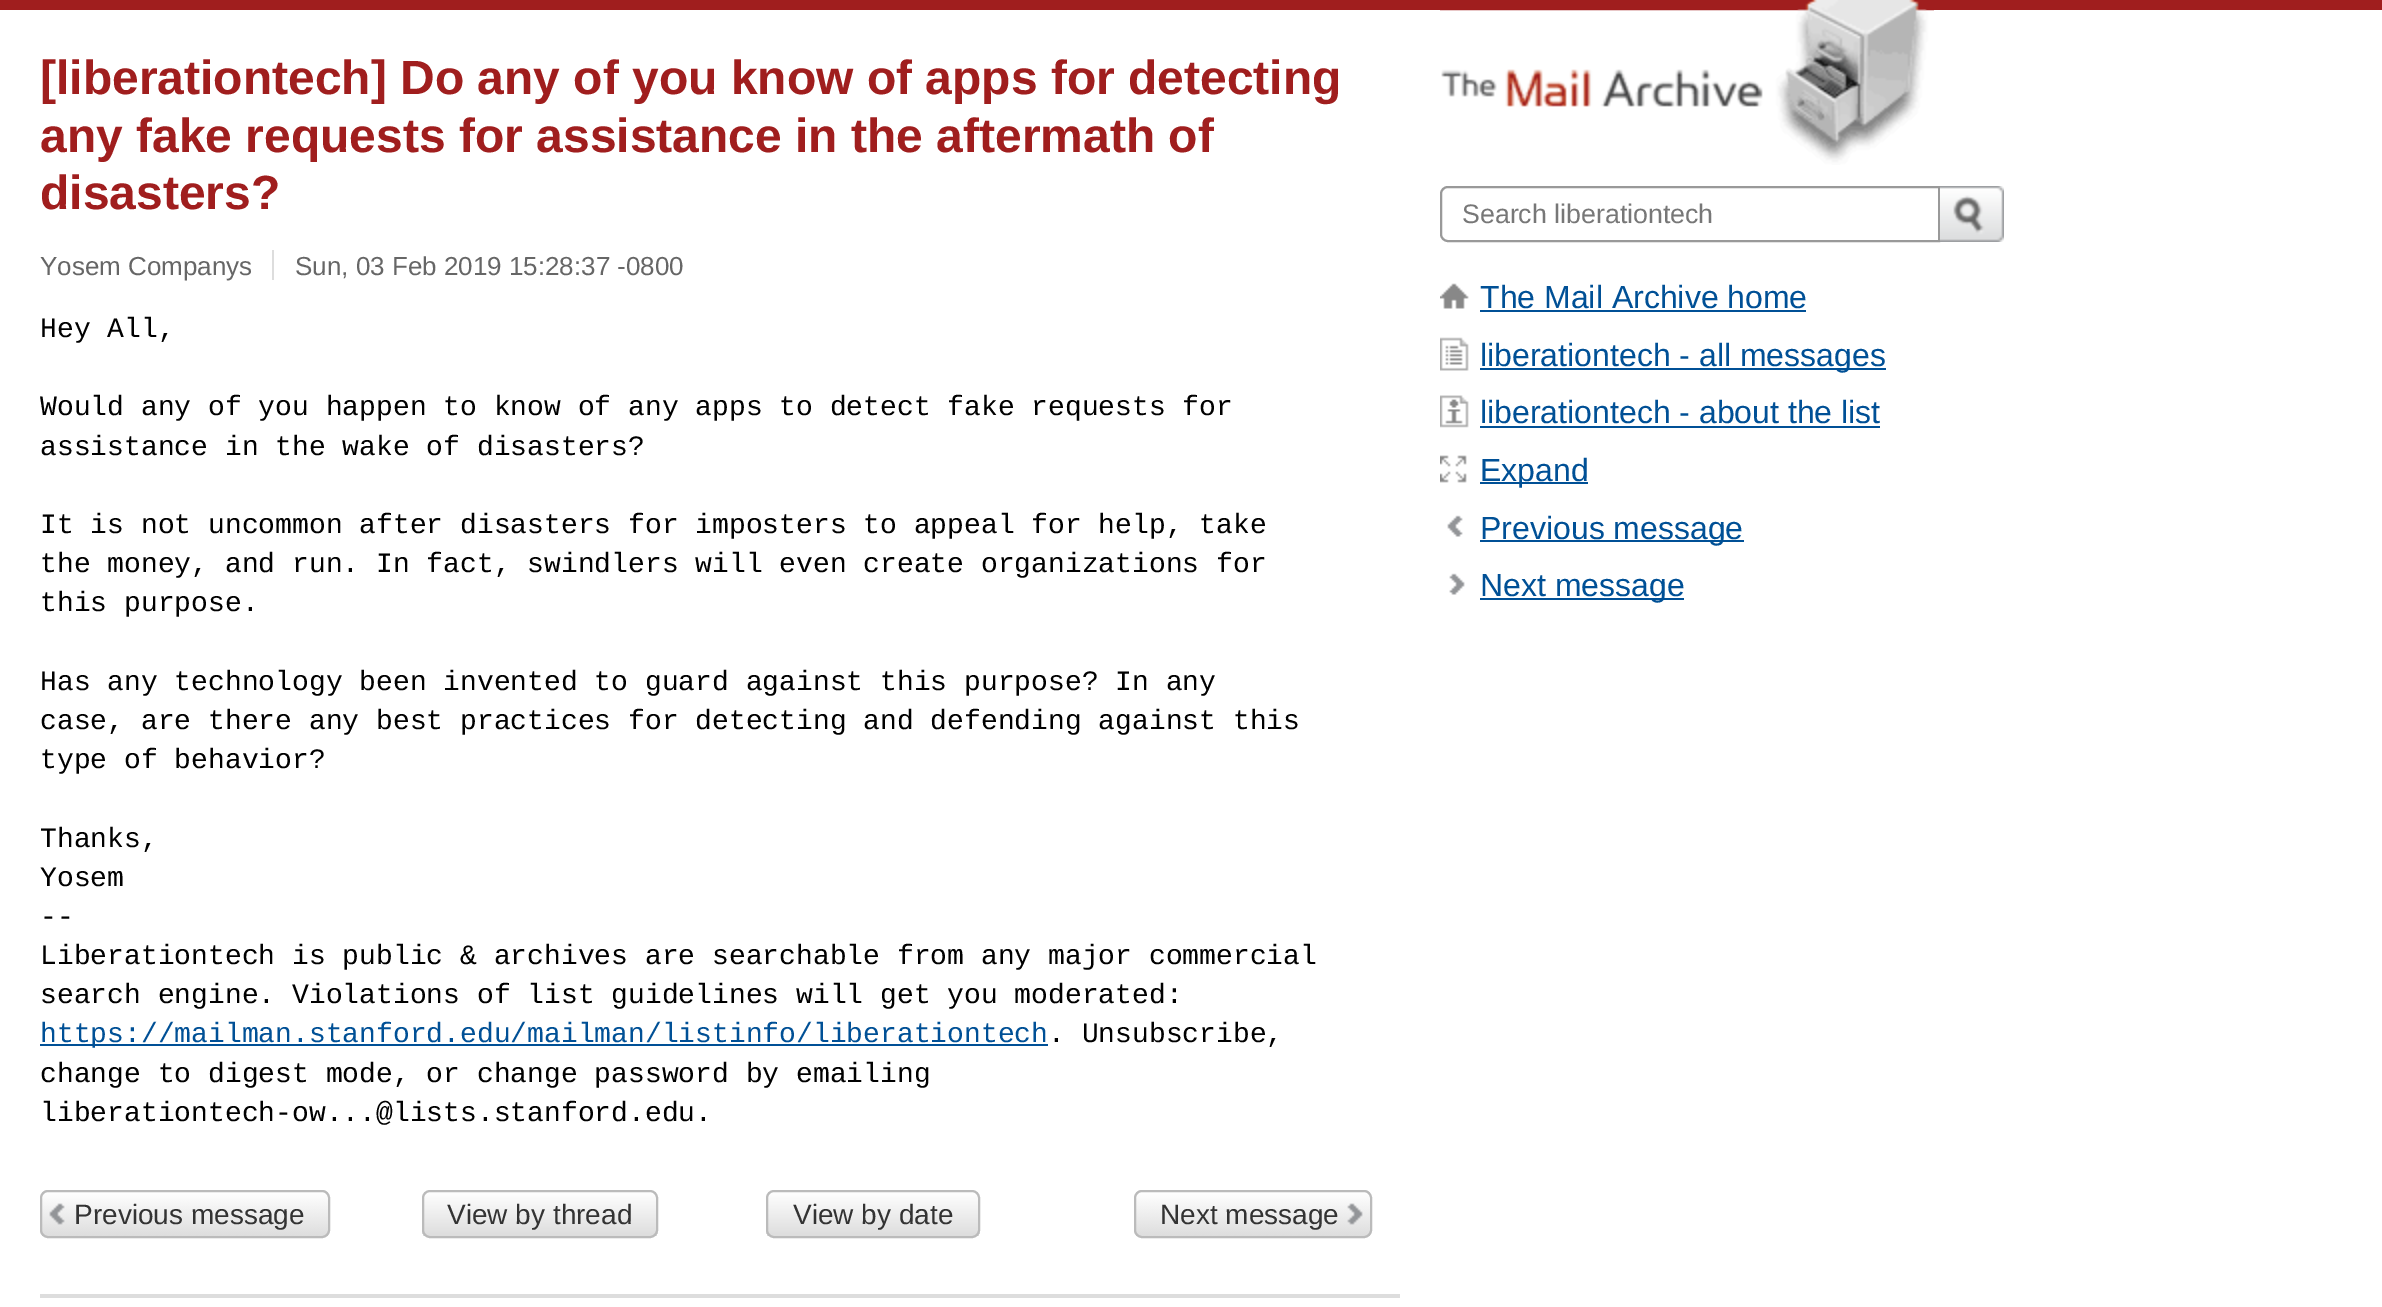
%!PS-Adobe-3.0
%%BoundingBox: 0 0 2382 1307
%%LanguageLevel: 3
%%Pages: 1
%%EndComments
%%BeginProlog
/m { moveto } bind def
/l { lineto } bind def
/c { curveto } bind def
/h { closepath } bind def
/S { stroke } bind def
/q { gsave } bind def
/Q { grestore } bind def
/w { setlinewidth } bind def
/fn { [ exch dup neg 0 0 3 -1 roll 0 0 ] selectfont } def
/tx { moveto show } def
/bx { rectfill } def
/rr { 5 dict begin { /r /h /w /y /x } { exch def } forall
  x r add y moveto x w add y 2 copy h add r arct x w add y h add x 1 index r arct
  x y h add x y r arct x y 2 copy exch w add exch r arct closepath end } def
/im { 5 dict begin { /h /w /y /x /name } { exch def } forall
  gsave x y translate w h scale
  w h 8 [w 0 0 h 0 0] name (r) file false 3 colorimage grestore end } def
%%EndProlog
%%BeginSetup
<< /PageSize [2382 1307] >> setpagedevice
%%EndSetup
%%Page: 1 1
0 1307 translate 1 -1 scale
4 setmiterlimit
1 setgray
0 0 2382 1307 bx
0.627 0.118 0.118 setrgbcolor
0 0 2382 10 bx
/LiberationSans-Bold 48 fn
([liberationtech] Do any of you know of apps for detecting) 40 94 tx
(any fake requests for assistance in the aftermath of) 40 152 tx
(disasters?) 40 209 tx
/LiberationSans-Regular 26 fn
0.4 setgray
(Yosem Companys) 40 275 tx
0.867 setgray
272 250 2 30 bx
0.4 setgray
(Sun, 03 Feb 2019 15:28:37 -0800) 295 275 tx
/LiberationMono-Regular 28 fn
0 setgray
(Hey All,) 40 337 tx
(Would any of you happen to know of any apps to detect fake requests for) 40 415 tx
(assistance in the wake of disasters?) 40 455 tx
(It is not uncommon after disasters for imposters to appeal for help, take) 40 533 tx
(the money, and run. In fact, swindlers will even create organizations for) 40 572 tx
(this purpose.) 40 611 tx
(Has any technology been invented to guard against this purpose? In any) 40 690 tx
(case, are there any best practices for detecting and defending against this) 40 729 tx
(type of behavior?) 40 768 tx
(Thanks,) 40 847 tx
(Yosem) 40 886 tx
(--) 40 925 tx
(Liberationtech is public & archives are searchable from any major commercial) 40 964 tx
(search engine. Violations of list guidelines will get you moderated:) 40 1003 tx
0 0.314 0.588 setrgbcolor
40 1044 1008 2 bx
(https://mailman.stanford.edu/mailman/listinfo/liberationtech) 40 1042 tx
0 setgray
(. Unsubscribe,) 1048 1042 tx
(change to digest mode, or change password by emailing) 40 1082 tx
(liberationtech-ow...@lists.stanford.edu.) 40 1121 tx
(image0.raw) 40 1190 290 48 im
0.733 setgray
2 w
41 1191 288 46 7 rr S
/LiberationSans-Regular 28 fn
0.2 setgray
(Previous message) 74 1224 tx
q
422 1190 236 48 8 rr clip newpath
q 422 1192 m 658 1192 l 658 1236 l 422 1236 l h clip newpath
<< /ShadingType 2 /ColorSpace /DeviceRGB /Coords [540 1192 540 1236] /Extend [true true] /Function << /FunctionType 2 /Domain [0 1] /C0 [1 1 1] /C1 [0.867 0.867 0.867] /N 1 >> >> shfill Q
Q
0.733 setgray
423 1191 234 46 7 rr S
0.2 setgray
(View by thread) 447 1224 tx
q
766 1190 214 48 8 rr clip newpath
q 766 1192 m 980 1192 l 980 1236 l 766 1236 l h clip newpath
<< /ShadingType 2 /ColorSpace /DeviceRGB /Coords [873 1192 873 1236] /Extend [true true] /Function << /FunctionType 2 /Domain [0 1] /C0 [1 1 1] /C1 [0.867 0.867 0.867] /N 1 >> >> shfill Q
Q
0.733 setgray
767 1191 212 46 7 rr S
0.2 setgray
(View by date) 793 1224 tx
(image1.raw) 1134 1190 238 48 im
0.733 setgray
1135 1191 236 46 7 rr S
0.2 setgray
(Next message) 1160 1224 tx
0.867 setgray
40 1294 1360 4 bx
(image2.raw) 1440 0 494 165 im
0.6 setgray
1448 187 m 1939 187 l 1939 241 l 1448 241 l 1444 241 1441 238 1441 234 c 1441 194 l 1441 190 1444 187 1448 187 c h S
/LiberationSans-Regular 26.75 fn
0.467 setgray
(Search liberationtech) 1462 223 tx
(image3.raw) 1940 186 64 56 im
(image4.raw) 1440 283 29 26 im
/LiberationSans-Regular 32 fn
0 0.314 0.588 setrgbcolor
(The Mail Archive home) 1480 308 tx
1480 310 326 2 bx
(image5.raw) 1440 337 29 34 im
1480 368 406 2 bx
(liberationtech - all messages) 1480 366 tx
(image6.raw) 1440 395 29 33 im
(liberationtech - about the list) 1480 423 tx
1480 426 400 2 bx
(image7.raw) 1440 455 27 28 im
1480 482 108 2 bx
(Expand) 1480 481 tx
(image8.raw) 1447 515 16 22 im
1480 540 264 2 bx
(Previous message) 1480 539 tx
(image9.raw) 1449 573 16 22 im
1480 598 204 2 bx
(Next message) 1480 596 tx
showpage
%%EOF
